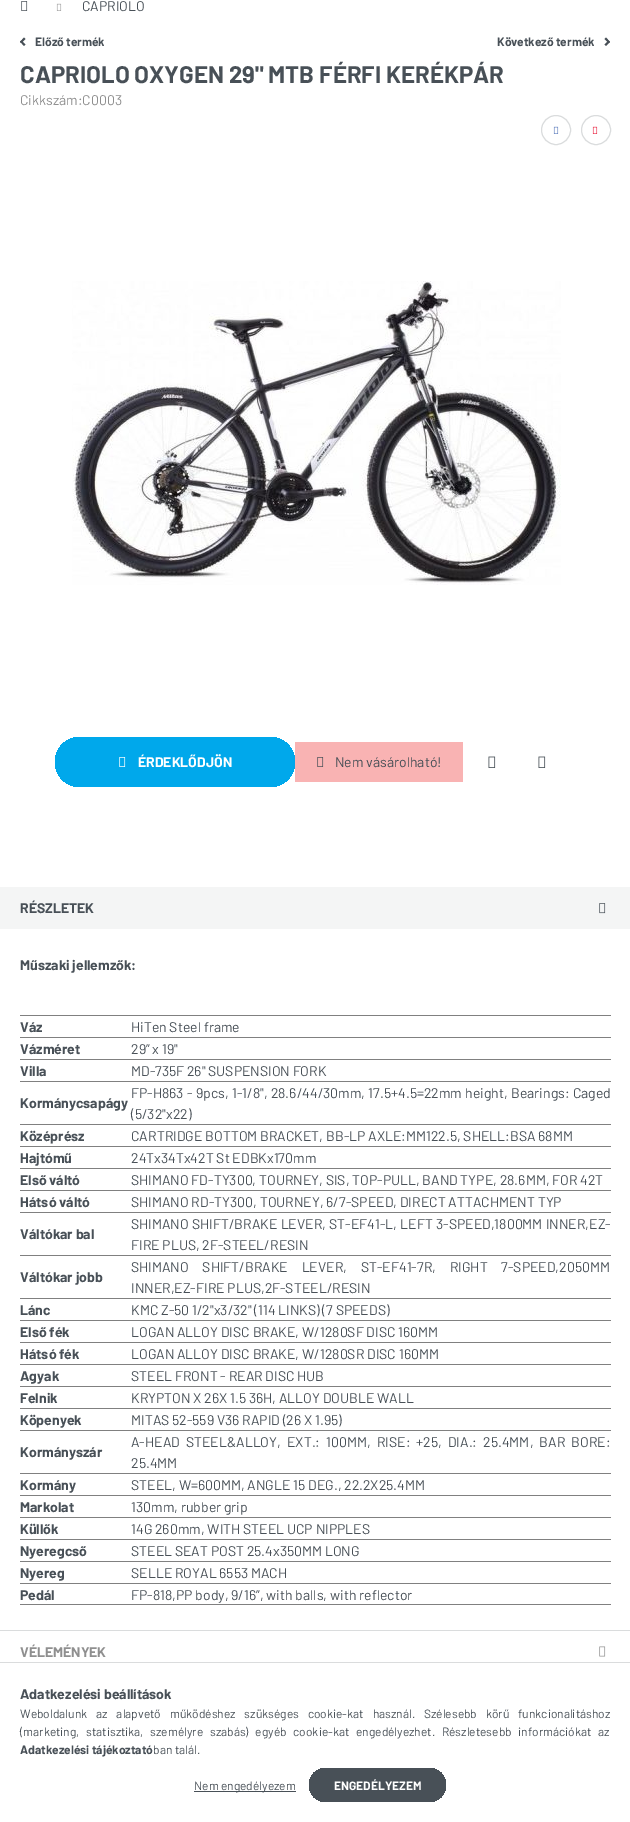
%!PS-Adobe-3.0
%%BoundingBox: 0 0 630 1822
%%LanguageLevel: 3
%%Pages: 1
%%EndComments
%%BeginProlog
/m { moveto } bind def
/l { lineto } bind def
/h { closepath } bind def
/f { fill } bind def
/S { stroke } bind def
/q { gsave } bind def
/Q { grestore } bind def
/fn { [ exch dup neg 0 0 3 -1 roll 0 0 ] selectfont } def
/tx { moveto show } def
/bx { rectfill } def
/ci { newpath 0 360 arc closepath } def
/rr { 5 dict begin { /r /h /w /y /x } { exch def } forall
  x r add y moveto x w add y 2 copy h add r arct x w add y h add x 1 index r arct
  x y h add x y r arct x y 2 copy exch w add exch r arct closepath end } def
/im { 5 dict begin { /h /w /y /x /name } { exch def } forall
  gsave x y translate w h scale
  w h 8 [w 0 0 h 0 0] name (r) file false 3 colorimage grestore end } def
%%EndProlog
%%BeginSetup
<< /PageSize [630 1822] >> setpagedevice
%%EndSetup
%%Page: 1 1
0 1822 translate 1 -1 scale
4 setmiterlimit
1 setgray
0 0 630 1822 bx
(image0.raw) 21 1 7 10 im
(image1.raw) 56 3 6 8 im
/Barlow-Regular 14 fn
0.282 0.314 0.341 setrgbcolor
(CAPRIOLO) 82 11 tx
20 42 m 24 37.5 l 25.5 39 l 21.5 43 l h f
21.5 40.5 m 25.5 44.5 l 24 46 l 20 41.5 l h f
/Barlow-Bold 12 fn
(Előző termék) 35 46 tx
(Következő termék) 497 46 tx
604.5 44.5 m 608.5 40.5 l 610 42 l 606 46 l h f
606 37.5 m 610 42 l 608.5 43 l 604.5 39 l h f
/Barlow-Bold 24 fn
(CAPRIOLO OXYGEN 29" MTB FÉRFI KERÉKPÁR) 20 83 tx
/Barlow-Regular 14 fn
0.561 setgray
(Cikkszám:C0003) 20 105 tx
0.855 0.863 0.867 setrgbcolor
556 130 14.5 ci S
(image2.raw) 553 126 6 8 im
596 130 14.5 ci S
(image3.raw) 592 126 6 8 im
(image4.raw) 72 281 489 304 im
q 55 737 240 50 25 rr clip newpath
<< /ShadingType 2 /ColorSpace /DeviceRGB /Coords [55 762 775 762] /Extend [true true] /Function << /FunctionType 3 /Domain [0 1] /Functions [<< /FunctionType 2 /Domain [0 1] /C0 [0 0.659 0.922] /C1 [0 0.659 0.922] /N 1 >> << /FunctionType 2 /Domain [0 1] /C0 [0 0.659 0.922] /C1 [0.694 0.008 0.055] /N 1 >> << /FunctionType 2 /Domain [0 1] /C0 [0.694 0.008 0.055] /C1 [0.694 0.008 0.055] /N 1 >>] /Bounds [0.33 0.67] /Encode [0 1 0 1 0 1] >> >> shfill Q
(image5.raw) 119 757 7 10 im
/Barlow-Bold 14 fn
1 setgray
(ÉRDEKLŐDJÖN) 138 767 tx
0.976 0.702 0.702 setrgbcolor
295 742 168 40 bx
(image6.raw) 317 757 7 10 im
/Barlow-Regular 14 fn
0.282 0.314 0.341 setrgbcolor
(Nem vásárolható!) 335 767 tx
(image7.raw) 488 756 8 12 im
(image7.raw) 538 756 8 12 im
0.957 0.961 0.961 setrgbcolor
0 887 630 42 bx
/Barlow-Bold 14 fn
0.282 0.314 0.341 setrgbcolor
(RÉSZLETEK) 20 913 tx
(image8.raw) 599 903 7 11 im
(Műszaki jellemzők:) 20 970 tx
(Váz) 20 1032 tx
0.502 setgray
20 1015 591 1 bx
/Barlow-Regular 14 fn
0.282 0.314 0.341 setrgbcolor
(HiTen Steel frame) 131 1032 tx
/Barlow-Bold 14 fn
(Vázméret) 20 1054 tx
0.502 setgray
20 1037 591 1 bx
/Barlow-Regular 14 fn
0.282 0.314 0.341 setrgbcolor
(29” x 19") 131 1054 tx
/Barlow-Bold 14 fn
(Villa) 20 1076 tx
0.502 setgray
20 1059 591 1 bx
/Barlow-Regular 14 fn
0.282 0.314 0.341 setrgbcolor
(MD-735F 26" SUSPENSION FORK) 131 1076 tx
/Barlow-Bold 14 fn
(Kormánycsapágy) 20 1108 tx
0.502 setgray
20 1081 591 1 bx
/Barlow-Regular 14 fn
0.282 0.314 0.341 setrgbcolor
131 1098 m 0.5 0 32 (FP-H863 - 9pcs, 1-1/8", 28.6/44/30mm, 17.5+4.5=22mm height, Bearings: Caged) widthshow
(\(5/32"x22\)) 131 1119 tx
/Barlow-Bold 14 fn
(Középrész) 20 1141 tx
0.502 setgray
20 1124 591 1 bx
/Barlow-Regular 14 fn
0.282 0.314 0.341 setrgbcolor
(CARTRIDGE BOTTOM BRACKET, BB-LP AXLE:MM122.5, SHELL:BSA 68MM) 131 1141 tx
/Barlow-Bold 14 fn
(Hajtómű) 20 1163 tx
0.502 setgray
20 1146 591 1 bx
/Barlow-Regular 14 fn
0.282 0.314 0.341 setrgbcolor
(24Tx34Tx42T St EDBKx170mm) 131 1163 tx
/Barlow-Bold 14 fn
(Első váltó) 20 1185 tx
0.502 setgray
20 1168 591 1 bx
/Barlow-Regular 14 fn
0.282 0.314 0.341 setrgbcolor
(SHIMANO FD-TY300, TOURNEY, SIS, TOP-PULL, BAND TYPE, 28.6MM, FOR 42T) 131 1185 tx
/Barlow-Bold 14 fn
(Hátsó váltó) 20 1207 tx
0.502 setgray
20 1190 591 1 bx
/Barlow-Regular 14 fn
0.282 0.314 0.341 setrgbcolor
(SHIMANO RD-TY300, TOURNEY, 6/7-SPEED, DIRECT ATTACHMENT TYP) 131 1207 tx
/Barlow-Bold 14 fn
(Váltókar bal) 20 1239 tx
0.502 setgray
20 1212 591 1 bx
/Barlow-Regular 14 fn
0.282 0.314 0.341 setrgbcolor
131 1229 m 0.5 0 32 (SHIMANO SHIFT/BRAKE LEVER, ST-EF41-L, LEFT 3-SPEED,1800MM INNER,EZ-) widthshow
(FIRE PLUS, 2F-STEEL/RESIN) 131 1250 tx
/Barlow-Bold 14 fn
(Váltókar jobb) 20 1282 tx
0.502 setgray
20 1255 591 1 bx
/Barlow-Regular 14 fn
0.282 0.314 0.341 setrgbcolor
131 1272 m 11 0 32 (SHIMANO SHIFT/BRAKE LEVER, ST-EF41-7R, RIGHT 7-SPEED,2050MM) widthshow
(INNER,EZ-FIRE PLUS,2F-STEEL/RESIN) 131 1293 tx
/Barlow-Bold 14 fn
(Lánc) 20 1315 tx
0.502 setgray
20 1298 591 1 bx
/Barlow-Regular 14 fn
0.282 0.314 0.341 setrgbcolor
(KMC Z-50 1/2"x3/32" \(114 LINKS\) \(7 SPEEDS\)) 131 1315 tx
/Barlow-Bold 14 fn
(Első fék) 20 1337 tx
0.502 setgray
20 1320 591 1 bx
/Barlow-Regular 14 fn
0.282 0.314 0.341 setrgbcolor
(LOGAN ALLOY DISC BRAKE, W/1280SF DISC 160MM) 131 1337 tx
/Barlow-Bold 14 fn
(Hátsó fék) 20 1359 tx
0.502 setgray
20 1342 591 1 bx
/Barlow-Regular 14 fn
0.282 0.314 0.341 setrgbcolor
(LOGAN ALLOY DISC BRAKE, W/1280SR DISC 160MM) 131 1359 tx
/Barlow-Bold 14 fn
(Agyak) 20 1381 tx
0.502 setgray
20 1364 591 1 bx
/Barlow-Regular 14 fn
0.282 0.314 0.341 setrgbcolor
(STEEL FRONT - REAR DISC HUB) 131 1381 tx
/Barlow-Bold 14 fn
(Felnik) 20 1403 tx
0.502 setgray
20 1386 591 1 bx
/Barlow-Regular 14 fn
0.282 0.314 0.341 setrgbcolor
(KRYPTON X 26X 1.5 36H, ALLOY DOUBLE WALL) 131 1403 tx
/Barlow-Bold 14 fn
(Köpenyek) 20 1425 tx
0.502 setgray
20 1408 591 1 bx
/Barlow-Regular 14 fn
0.282 0.314 0.341 setrgbcolor
(MITAS 52-559 V36 RAPID \(26 X 1.95\)) 131 1425 tx
/Barlow-Bold 14 fn
(Kormányszár) 20 1457 tx
0.502 setgray
20 1430 591 1 bx
/Barlow-Regular 14 fn
0.282 0.314 0.341 setrgbcolor
131 1447 m 3.25 0 32 (A-HEAD STEEL&ALLOY, EXT.: 100MM, RISE: +25, DIA.: 25.4MM, BAR BORE:) widthshow
(25.4MM) 131 1468 tx
/Barlow-Bold 14 fn
(Kormány) 20 1490 tx
0.502 setgray
20 1473 591 1 bx
/Barlow-Regular 14 fn
0.282 0.314 0.341 setrgbcolor
(STEEL, W=600MM, ANGLE 15 DEG., 22.2X25.4MM) 131 1490 tx
/Barlow-Bold 14 fn
(Markolat) 20 1512 tx
0.502 setgray
20 1495 591 1 bx
/Barlow-Regular 14 fn
0.282 0.314 0.341 setrgbcolor
(130mm, rubber grip) 131 1512 tx
/Barlow-Bold 14 fn
(Küllők) 20 1534 tx
0.502 setgray
20 1517 591 1 bx
/Barlow-Regular 14 fn
0.282 0.314 0.341 setrgbcolor
(14G 260mm, WITH STEEL UCP NIPPLES) 131 1534 tx
/Barlow-Bold 14 fn
(Nyeregcső) 20 1556 tx
0.502 setgray
20 1539 591 1 bx
/Barlow-Regular 14 fn
0.282 0.314 0.341 setrgbcolor
(STEEL SEAT POST 25.4x350MM LONG) 131 1556 tx
/Barlow-Bold 14 fn
(Nyereg) 20 1578 tx
0.502 setgray
20 1561 591 1 bx
/Barlow-Regular 14 fn
0.282 0.314 0.341 setrgbcolor
(SELLE ROYAL 6553 MACH) 131 1578 tx
/Barlow-Bold 14 fn
(Pedál) 20 1600 tx
0.502 setgray
20 1583 591 1 bx
20 1604 591 1 bx
/Barlow-Regular 14 fn
0.282 0.314 0.341 setrgbcolor
(FP-818,PP body, 9/16”, with balls, with reflector) 131 1600 tx
0.855 0.863 0.867 setrgbcolor
0 1630 630 1 bx
/Barlow-Bold 14 fn
0.561 setgray
(VÉLEMÉNYEK) 20 1657 tx
(image9.raw) 599 1646 7 11 im
0.855 0.863 0.867 setrgbcolor
0 1662 630 1 bx
0.282 0.314 0.341 setrgbcolor
(Adatkezelési beállítások) 20 1699 tx
/Barlow-Regular 12 fn
20 1718 m 6.5 0 32 (Weboldalunk az alapvető működéshez szükséges cookie-kat használ. Szélesebb körű funkcionalitáshoz) widthshow
20 1736 m 4.25 0 32 (\(marketing, statisztika, személyre szabás\) egyéb cookie-kat engedélyezhet. Részletesebb információkat az) widthshow
/Barlow-Bold 12 fn
(Adatkezelési tájékoztató) 20 1754 tx
/Barlow-Regular 12 fn
(ban talál.) 153 1754 tx
194 1791 102 1 bx
(Nem engedélyezem) 194 1790 tx
q 309 1768 137 34 17 rr clip newpath
<< /ShadingType 2 /ColorSpace /DeviceRGB /Coords [309 1785 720 1785] /Extend [true true] /Function << /FunctionType 3 /Domain [0 1] /Functions [<< /FunctionType 2 /Domain [0 1] /C0 [0.282 0.314 0.341] /C1 [0.282 0.314 0.341] /N 1 >> << /FunctionType 2 /Domain [0 1] /C0 [0.282 0.314 0.341] /C1 [0 0.659 0.922] /N 1 >> << /FunctionType 2 /Domain [0 1] /C0 [0 0.659 0.922] /C1 [0 0.659 0.922] /N 1 >>] /Bounds [0.33 0.67] /Encode [0 1 0 1 0 1] >> >> shfill Q
/Barlow-Bold 12 fn
1 setgray
(ENGEDÉLYEZEM) 334 1790 tx
showpage
%%EOF
